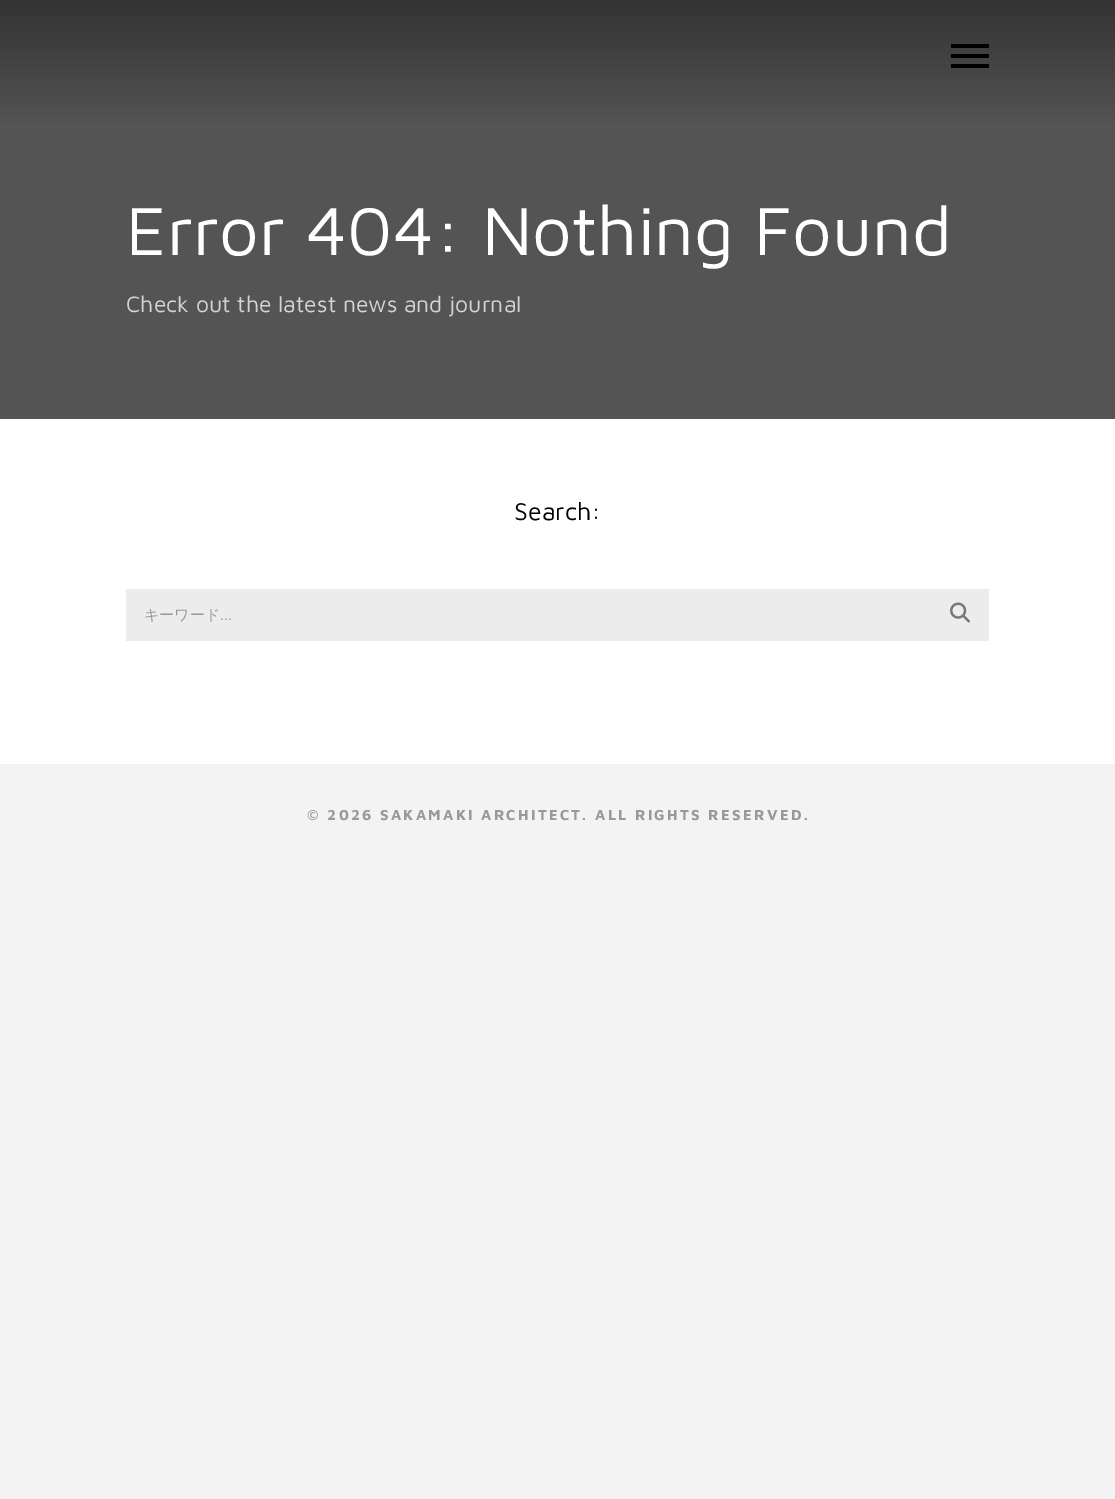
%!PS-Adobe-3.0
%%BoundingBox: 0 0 1115 1499
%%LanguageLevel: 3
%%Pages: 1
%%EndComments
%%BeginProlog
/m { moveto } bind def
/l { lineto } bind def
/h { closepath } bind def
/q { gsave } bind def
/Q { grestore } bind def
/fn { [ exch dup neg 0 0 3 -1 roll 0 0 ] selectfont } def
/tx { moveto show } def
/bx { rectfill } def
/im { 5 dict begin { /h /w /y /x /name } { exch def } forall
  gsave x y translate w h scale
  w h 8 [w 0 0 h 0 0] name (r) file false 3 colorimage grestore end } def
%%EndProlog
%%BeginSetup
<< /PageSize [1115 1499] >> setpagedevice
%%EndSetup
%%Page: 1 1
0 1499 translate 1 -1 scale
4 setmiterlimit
0.953 setgray
0 0 1115 1499 bx
q 0 0 m 1115 0 l 1115 419 l 0 419 l h clip newpath
<< /ShadingType 2 /ColorSpace /DeviceRGB /Coords [558 0 558 419] /Extend [true true] /Function << /FunctionType 3 /Domain [0 1] /Functions [<< /FunctionType 2 /Domain [0 1] /C0 [0.2 0.2 0.2] /C1 [0.329 0.329 0.329] /N 1 >> << /FunctionType 2 /Domain [0 1] /C0 [0.329 0.329 0.329] /C1 [0.329 0.329 0.329] /N 1 >>] /Bounds [0.3] /Encode [0 1 0 1] >> >> shfill Q
0 setgray
951 54 38 4 bx
951 44 38 4 bx
951 64 38 4 bx
1 setgray
0 419 1115 345 bx
/MavenPro-Regular 70 fn
(Error 404: Nothing Found) 126 255 tx
/MavenPro-Regular 23 fn
0.831 setgray
(Check out the latest news and journal) 126 312 tx
/MavenPro-Regular 25 fn
0 setgray
(Search:) 514 520 tx
0.925 setgray
126 589 863 52 bx
/WenQuanYiZenHei-Medium 15 fn
0.6 setgray
(キーワード) 144 620 tx
/MavenPro-Regular 15 fn
(...) 220 620 tx
(image0.raw) 950 602 20 21 im
/MavenPro-Bold 14.9 fn
307 820 m 2.25 0 (© 2026 SAKAMAKI ARCHITECT. ALL RIGHTS RESERVED.) ashow
showpage
%%EOF
